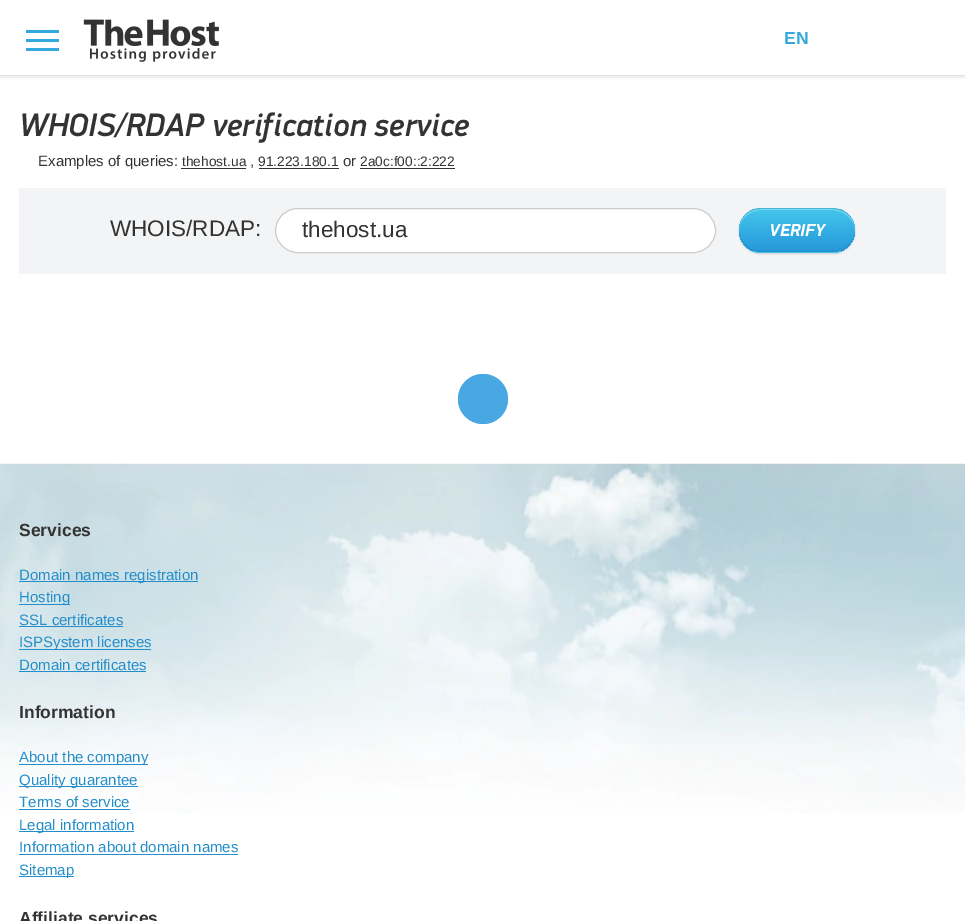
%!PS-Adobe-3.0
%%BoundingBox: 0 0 965 921
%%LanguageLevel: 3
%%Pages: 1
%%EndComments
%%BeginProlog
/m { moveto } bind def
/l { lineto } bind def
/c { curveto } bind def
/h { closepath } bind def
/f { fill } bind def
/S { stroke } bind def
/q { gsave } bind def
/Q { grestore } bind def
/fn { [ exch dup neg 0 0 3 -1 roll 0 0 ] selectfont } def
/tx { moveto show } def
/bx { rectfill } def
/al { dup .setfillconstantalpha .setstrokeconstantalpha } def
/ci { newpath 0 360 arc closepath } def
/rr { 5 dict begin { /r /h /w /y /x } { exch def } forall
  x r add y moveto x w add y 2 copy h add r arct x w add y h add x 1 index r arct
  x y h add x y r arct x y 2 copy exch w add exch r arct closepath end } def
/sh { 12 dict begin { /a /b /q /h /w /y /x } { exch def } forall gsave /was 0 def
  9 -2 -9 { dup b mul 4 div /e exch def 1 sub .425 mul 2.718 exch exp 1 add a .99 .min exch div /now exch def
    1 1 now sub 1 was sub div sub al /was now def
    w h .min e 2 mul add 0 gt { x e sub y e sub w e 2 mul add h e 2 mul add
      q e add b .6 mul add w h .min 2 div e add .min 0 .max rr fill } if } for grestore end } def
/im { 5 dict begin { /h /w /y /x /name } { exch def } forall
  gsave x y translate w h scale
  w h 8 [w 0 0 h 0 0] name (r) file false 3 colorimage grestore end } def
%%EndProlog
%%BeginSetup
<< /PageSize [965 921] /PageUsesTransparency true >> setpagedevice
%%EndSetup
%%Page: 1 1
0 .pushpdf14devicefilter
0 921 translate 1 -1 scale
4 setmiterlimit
1 setgray
0 0 965 921 bx
q
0 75 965 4 rectclip
0.2 setgray
0 -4 965 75 0 4 1 sh
Q
0.204 0.663 0.878 setrgbcolor
26 30 33 3 bx
26 39 33 3 bx
26 48 33 3 bx
(image0.raw) 83 19 136 43 im
/LiberationSans-Bold 17.5 fn
0.2 0.663 0.855 setrgbcolor
(EN) 784 44 tx
/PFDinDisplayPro-MediumItalic 32.5 fn
0.2 setgray
(WHOIS/RDAP verification service) 19 136 tx
/LiberationSans-Regular 15 fn
(Examples of queries:) 38 166 tx
/LiberationSans-Regular 13.75 fn
(thehost.ua) 182 166 tx
181 168 65 1 bx
/LiberationSans-Regular 15 fn
(,) 250 166 tx
/LiberationSans-Regular 13.75 fn
(91.223.180.1) 258 166 tx
259 168 80 1 bx
/LiberationSans-Regular 15 fn
(or) 343 166 tx
/LiberationSans-Regular 13.75 fn
(2a0c:f00::2:222) 360 166 tx
360 168 95 1 bx
0.953 0.957 0.961 setrgbcolor
19 188 927 86 bx
/LiberationSans-Regular 22.5 fn
0.2 setgray
(WHOIS/RDAP:) 110 236 tx
1 setgray
275.5 208.5 440 44 22 rr q f Q
0.8 setgray
S
0.2 setgray
(thehost.ua) 302 237 tx
0 setgray
739 209 116 45 22.5 1 0.15 sh
q
739 208 116 45 22.5 rr clip newpath
q 739 209 m 855 209 l 855 251 l 739 251 l h clip newpath
<< /ShadingType 2 /ColorSpace /DeviceRGB /Coords [797 209 797 251] /Extend [true true] /Function << /FunctionType 2 /Domain [0 1] /C0 [0.267 0.776 0.922] /C1 [0.149 0.596 0.859] /N 1 >> >> shfill Q
q 752 251 m 842 251 l 842 253 l 752 253 l h clip newpath
<< /ShadingType 2 /ColorSpace /DeviceRGB /Coords [797 251 797 294] /Extend [true true] /Function << /FunctionType 2 /Domain [0 1] /C0 [0.267 0.776 0.922] /C1 [0.149 0.596 0.859] /N 1 >> >> shfill Q
Q
0.35 al
1 setgray
761 210 m 832 210 l 845 210 855 220 855 231 c 855 220 847 211 837 209 c 773 209 l 760 209 747 208 741 222 c 739 226 738 231 739 235 c 737 222 748 210 761 210 c h f
1 al
0.243 0.718 0.851 setrgbcolor
761 208 m 749 208 740 217 739 229 c 740 217 749 209 761 209 c 832 209 l 844 209 854 217 855 228 c 854 217 844 208 832 208 c h f
0.137 0.553 0.792 setrgbcolor
832 252 m 844 252 854 243 855 231 c 854 243 844 251 832 251 c 761 251 l 750 251 740 243 739 232 c 740 243 750 252 761 252 c h f
/PFDinDisplayPro-BoldItalic 17.5 fn
1 setgray
(VERIFY) 769 236 tx
0.49 0.757 0.914 setrgbcolor
483 399 25 ci f
0.6 al
0.149 0.596 0.859 setrgbcolor
483 399 25 ci f
1 al
(image1.raw) 0 463 965 351 im
/LiberationSans-Bold 17.5 fn
0.2 setgray
(Services) 19 536 tx
0.137 0.557 0.792 setrgbcolor
19 581 179 1 bx
/LiberationSans-Regular 15 fn
(Domain names registration) 19 580 tx
19 604 51 1 bx
(Hosting) 19 602 tx
(SSL certificates) 19 625 tx
19 626 104 1 bx
19 649 132 1 bx
(ISPSystem licenses) 19 647 tx
(Domain certificates) 19 670 tx
19 671 127 1 bx
/LiberationSans-Bold 17.5 fn
0.2 setgray
(Information) 19 718 tx
0.137 0.557 0.792 setrgbcolor
19 764 129 1 bx
/LiberationSans-Regular 15 fn
(About the company) 19 762 tx
19 786 119 1 bx
(Quality guarantee) 19 785 tx
(Terms of service) 19 807 tx
19 809 111 1 bx
19 831 115 1 bx
(Legal information) 19 830 tx
(Information about domain names) 19 852 tx
19 854 219 1 bx
19 876 55 1 bx
(Sitemap) 19 875 tx
/LiberationSans-Bold 17.5 fn
0.2 setgray
(Affiliate services) 19 924 tx
.poppdf14devicefilter showpage
%%EOF
